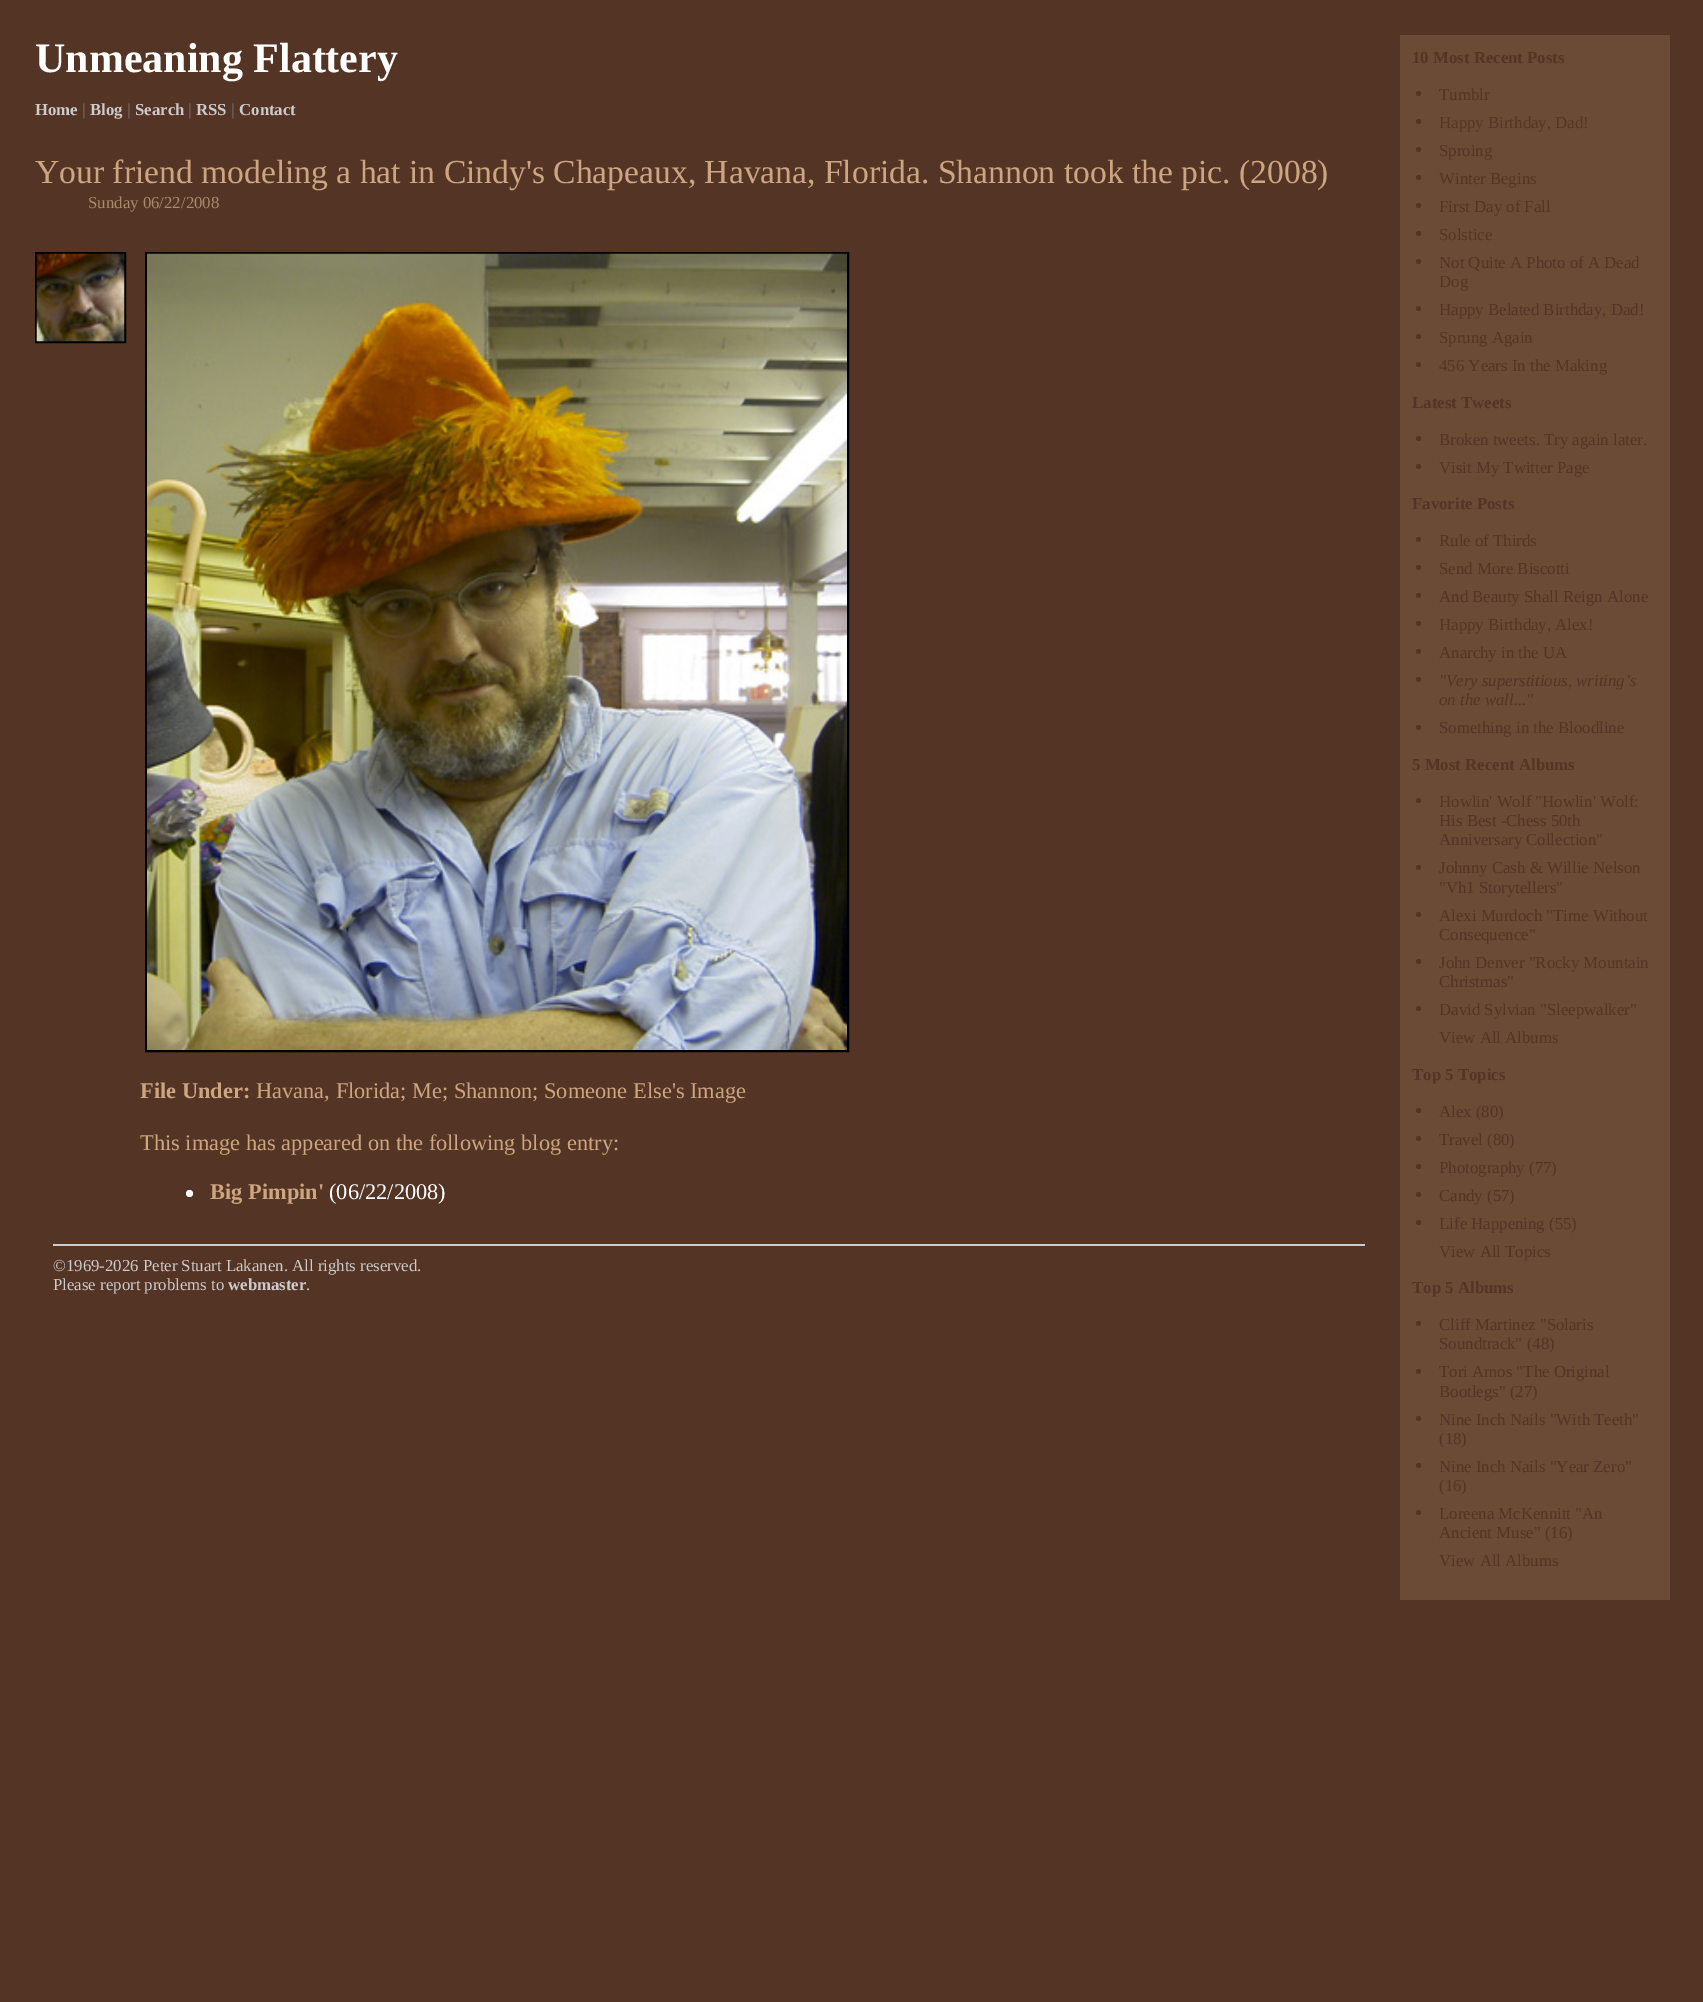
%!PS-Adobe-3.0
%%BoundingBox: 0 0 1703 2002
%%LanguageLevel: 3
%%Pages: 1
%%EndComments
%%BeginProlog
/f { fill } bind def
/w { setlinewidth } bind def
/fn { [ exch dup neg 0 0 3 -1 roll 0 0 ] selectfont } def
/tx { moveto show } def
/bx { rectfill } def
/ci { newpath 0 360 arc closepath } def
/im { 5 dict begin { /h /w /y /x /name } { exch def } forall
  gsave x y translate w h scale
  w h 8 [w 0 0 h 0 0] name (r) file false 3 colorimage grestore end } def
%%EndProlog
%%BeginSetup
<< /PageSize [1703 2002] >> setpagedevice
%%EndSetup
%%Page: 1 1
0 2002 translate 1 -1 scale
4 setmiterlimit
0.329 0.204 0.145 setrgbcolor
0 0 1703 2002 bx
/LiberationSerif-Bold 42 fn
1 setgray
(Unmeaning Flattery) 35 72 tx
0.42 0.29 0.212 setrgbcolor
1400 35 270 1565 bx
/LiberationSerif-Bold 16.8 fn
0.329 0.204 0.145 setrgbcolor
(10 Most Recent Posts) 1412 63 tx
1418.5 93.5 2.5 ci f
/LiberationSerif-Regular 16.8 fn
(Tumblr) 1439 100 tx
1418.5 121.5 2.5 ci f
(Happy Birthday, Dad!) 1439 128 tx
1418.5 149.5 2.5 ci f
(Sproing) 1439 156 tx
1418.5 177.5 2.5 ci f
(Winter Begins) 1439 184 tx
1418.5 205.5 2.5 ci f
(First Day of Fall) 1439 212 tx
1418.5 233.5 2.5 ci f
(Solstice) 1439 240 tx
1418.5 261.5 2.5 ci f
(Not Quite A Photo of A Dead) 1439 268 tx
(Dog) 1439 287 tx
1418.5 308.5 2.5 ci f
(Happy Belated Birthday, Dad!) 1439 315 tx
1418.5 336.5 2.5 ci f
(Sprung Again) 1439 343 tx
1418.5 364.5 2.5 ci f
(456 Years In the Making) 1439 371 tx
/LiberationSerif-Bold 16.8 fn
(Latest Tweets) 1412 408 tx
1418.5 438.5 2.5 ci f
/LiberationSerif-Regular 16.8 fn
(Broken tweets. Try again later.) 1439 445 tx
1418.5 466.5 2.5 ci f
(Visit My Twitter Page) 1439 473 tx
/LiberationSerif-Bold 16.8 fn
(Favorite Posts) 1412 509 tx
1418.5 539.5 2.5 ci f
/LiberationSerif-Regular 16.8 fn
(Rule of Thirds) 1439 546 tx
1418.5 567.5 2.5 ci f
(Send More Biscotti) 1439 574 tx
1418.5 595.5 2.5 ci f
(And Beauty Shall Reign Alone) 1439 602 tx
1418.5 623.5 2.5 ci f
(Happy Birthday, Alex!) 1439 630 tx
1418.5 651.5 2.5 ci f
(Anarchy in the UA) 1439 658 tx
1418.5 679.5 2.5 ci f
/LiberationSerif-Italic 16.8 fn
("Very superstitious, writing’s) 1439 686 tx
(on the wall...") 1439 705 tx
1418.5 727.5 2.5 ci f
/LiberationSerif-Regular 16.8 fn
(Something in the Bloodline) 1439 733 tx
/LiberationSerif-Bold 16.8 fn
(5 Most Recent Albums) 1412 770 tx
1418.5 800.5 2.5 ci f
/LiberationSerif-Regular 16.8 fn
(Howlin' Wolf "Howlin' Wolf:) 1439 807 tx
(His Best -Chess 50th) 1439 826 tx
(Anniversary Collection") 1439 845 tx
1418.5 867.5 2.5 ci f
(Johnny Cash & Willie Nelson) 1439 873 tx
("Vh1 Storytellers") 1439 893 tx
1418.5 914.5 2.5 ci f
(Alexi Murdoch "Time Without) 1439 921 tx
(Consequence") 1439 940 tx
1418.5 961.5 2.5 ci f
(John Denver "Rocky Mountain) 1439 968 tx
(Christmas") 1439 987 tx
1418.5 1008.5 2.5 ci f
(David Sylvian "Sleepwalker") 1439 1015 tx
(View All Albums) 1439 1043 tx
/LiberationSerif-Bold 16.8 fn
(Top 5 Topics) 1412 1080 tx
1418.5 1110.5 2.5 ci f
/LiberationSerif-Regular 16.8 fn
(Alex \(80\)) 1439 1117 tx
1418.5 1138.5 2.5 ci f
(Travel \(80\)) 1439 1145 tx
1418.5 1166.5 2.5 ci f
(Photography \(77\)) 1439 1173 tx
1418.5 1194.5 2.5 ci f
(Candy \(57\)) 1439 1201 tx
1418.5 1222.5 2.5 ci f
(Life Happening \(55\)) 1439 1229 tx
(View All Topics) 1439 1257 tx
/LiberationSerif-Bold 16.8 fn
(Top 5 Albums) 1412 1293 tx
1418.5 1323.5 2.5 ci f
/LiberationSerif-Regular 16.8 fn
(Cliff Martinez "Solaris) 1439 1330 tx
(Soundtrack" \(48\)) 1439 1349 tx
1418.5 1371.5 2.5 ci f
(Tori Amos "The Original) 1439 1377 tx
(Bootlegs" \(27\)) 1439 1397 tx
1418.5 1418.5 2.5 ci f
(Nine Inch Nails "With Teeth") 1439 1425 tx
(\(18\)) 1439 1444 tx
1418.5 1465.5 2.5 ci f
(Nine Inch Nails "Year Zero") 1439 1472 tx
(\(16\)) 1439 1491 tx
1418.5 1512.5 2.5 ci f
(Loreena McKennitt "An) 1439 1519 tx
(Ancient Muse" \(16\)) 1439 1538 tx
(View All Albums) 1439 1566 tx
/LiberationSerif-Bold 16.8 fn
0.8 setgray
(Home) 35 115 tx
0.4 setgray
(|) 82 115 tx
0.8 setgray
(Blog) 90 115 tx
0.4 setgray
(|) 127 115 tx
0.8 setgray
(Search) 135 115 tx
0.4 setgray
(|) 188 115 tx
0.8 setgray
(RSS) 196 115 tx
0.4 setgray
(|) 231 115 tx
0.8 setgray
(Contact) 239 115 tx
/LiberationSerif-Regular 33.6 fn
0.8 0.651 0.506 setrgbcolor
(Your friend modeling a hat in Cindy's Chapeaux, Havana, Florida. Shannon took the pic. \(2008\)) 35 183 tx
/LiberationSerif-Regular 16.8 fn
0.663 0.541 0.42 setrgbcolor
(Sunday 06/22/2008) 88 208 tx
0 setgray
2 w
36 253 89 89 rectstroke
(image0.raw) 36 253 89 89 im
146 253 702 798 rectstroke
(image1.raw) 147 253 700 797 im
/LiberationSerif-Bold 22.4 fn
0.8 0.651 0.506 setrgbcolor
(File Under:) 140 1098 tx
/LiberationSerif-Regular 22.4 fn
(Havana, Florida; Me; Shannon; Someone Else's Image) 256 1098 tx
(This image has appeared on the following blog entry:) 140 1150 tx
1 setgray
189.5 1193.5 3.5 ci f
/LiberationSerif-Bold 22.4 fn
0.8 0.651 0.506 setrgbcolor
(Big Pimpin') 210 1199 tx
/LiberationSerif-Regular 22.4 fn
1 setgray
(\(06/22/2008\)) 329 1199 tx
0.8 setgray
53 1244 1312 2 bx
/LiberationSerif-Regular 16.8 fn
(©1969-2026 Peter Stuart Lakanen. All rights reserved.) 53 1271 tx
(Please report problems to) 53 1290 tx
/LiberationSerif-Bold 16.8 fn
(webmaster) 228 1290 tx
/LiberationSerif-Regular 16.8 fn
(.) 306 1290 tx
showpage
%%EOF
